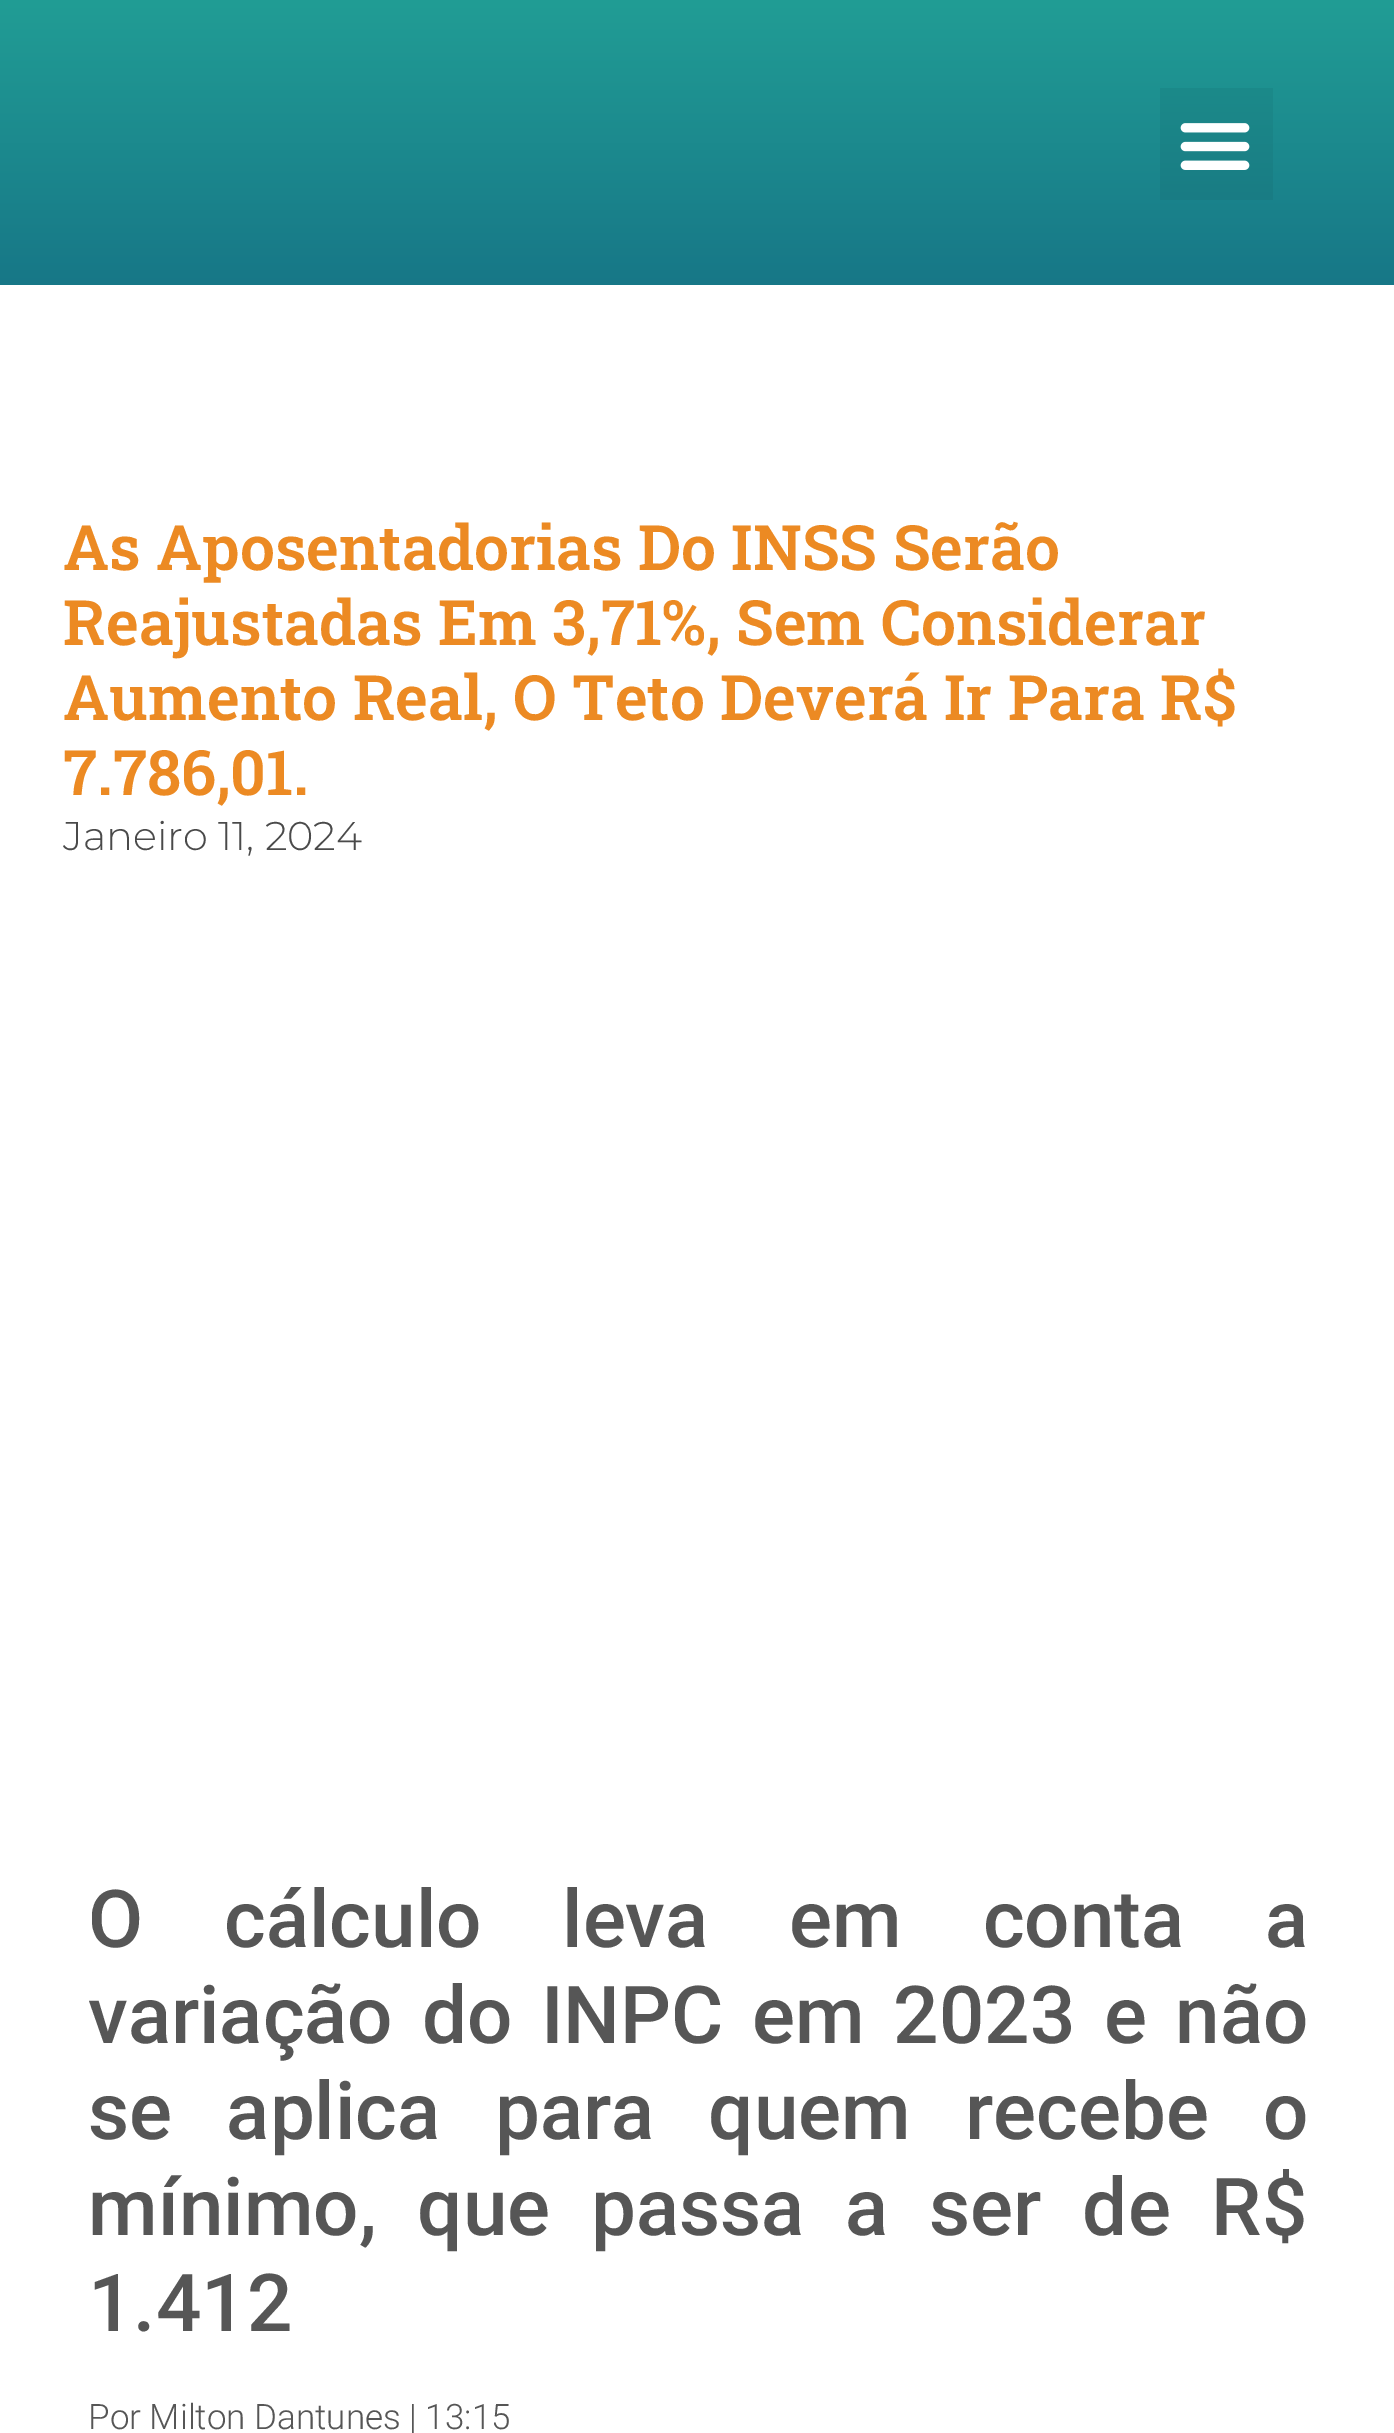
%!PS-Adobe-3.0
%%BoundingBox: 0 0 1394 2433
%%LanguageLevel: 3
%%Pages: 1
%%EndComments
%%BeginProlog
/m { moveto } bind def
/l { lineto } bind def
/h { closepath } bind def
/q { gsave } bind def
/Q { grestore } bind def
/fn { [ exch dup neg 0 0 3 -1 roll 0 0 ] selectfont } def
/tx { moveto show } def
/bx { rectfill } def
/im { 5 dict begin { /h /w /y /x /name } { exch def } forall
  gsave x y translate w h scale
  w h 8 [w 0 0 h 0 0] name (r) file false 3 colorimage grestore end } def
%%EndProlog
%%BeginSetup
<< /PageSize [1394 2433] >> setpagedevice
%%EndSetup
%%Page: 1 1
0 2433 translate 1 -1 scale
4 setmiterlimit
1 setgray
0 0 1394 2433 bx
q 0 0 m 1394 0 l 1394 285 l 0 285 l h clip newpath
<< /ShadingType 2 /ColorSpace /DeviceRGB /Coords [698 0 698 285] /Extend [true true] /Function << /FunctionType 2 /Domain [0 1] /C0 [0.129 0.616 0.584] /C1 [0.09 0.467 0.529] /N 1 >> >> shfill Q
q 1160 88 m 1273 88 l 1273 200 l 1160 200 l h clip newpath
<< /ShadingType 2 /ColorSpace /DeviceRGB /Coords [698 0 698 285] /Extend [true true] /Function << /FunctionType 2 /Domain [0 1] /C0 [0.122 0.584 0.557] /C1 [0.086 0.443 0.502] /N 1 >> >> shfill Q
(image0.raw) 1180 123 70 47 im
/RobotoSlab-SemiBold 62.5 fn
0.925 0.541 0.137 setrgbcolor
(As Aposentadorias Do INSS Serão) 63 570 tx
(Reajustadas Em 3,71%, Sem Considerar) 63 645 tx
(Aumento Real, O Teto Deverá Ir Para R$) 63 720 tx
(7.786,01.) 63 795 tx
/Montserrat-Light 40 fn
0.29 setgray
(Janeiro 11, 2024) 63 850 tx
/Roboto-Medium 80 fn
0.337 setgray
88 1947 m 61 0 32 (O cálculo leva em conta a) widthshow
88 2043 m 8.75 0 32 (variação do INPC em 2023 e não) widthshow
88 2139 m 34.5 0 32 (se aplica para quem recebe o) widthshow
88 2235 m 21 0 32 (mínimo, que passa a ser de R$) widthshow
(1.412) 88 2331 tx
/Roboto-Light 35 fn
(Por Milton Dantunes | 13:15) 88 2429 tx
showpage
%%EOF
